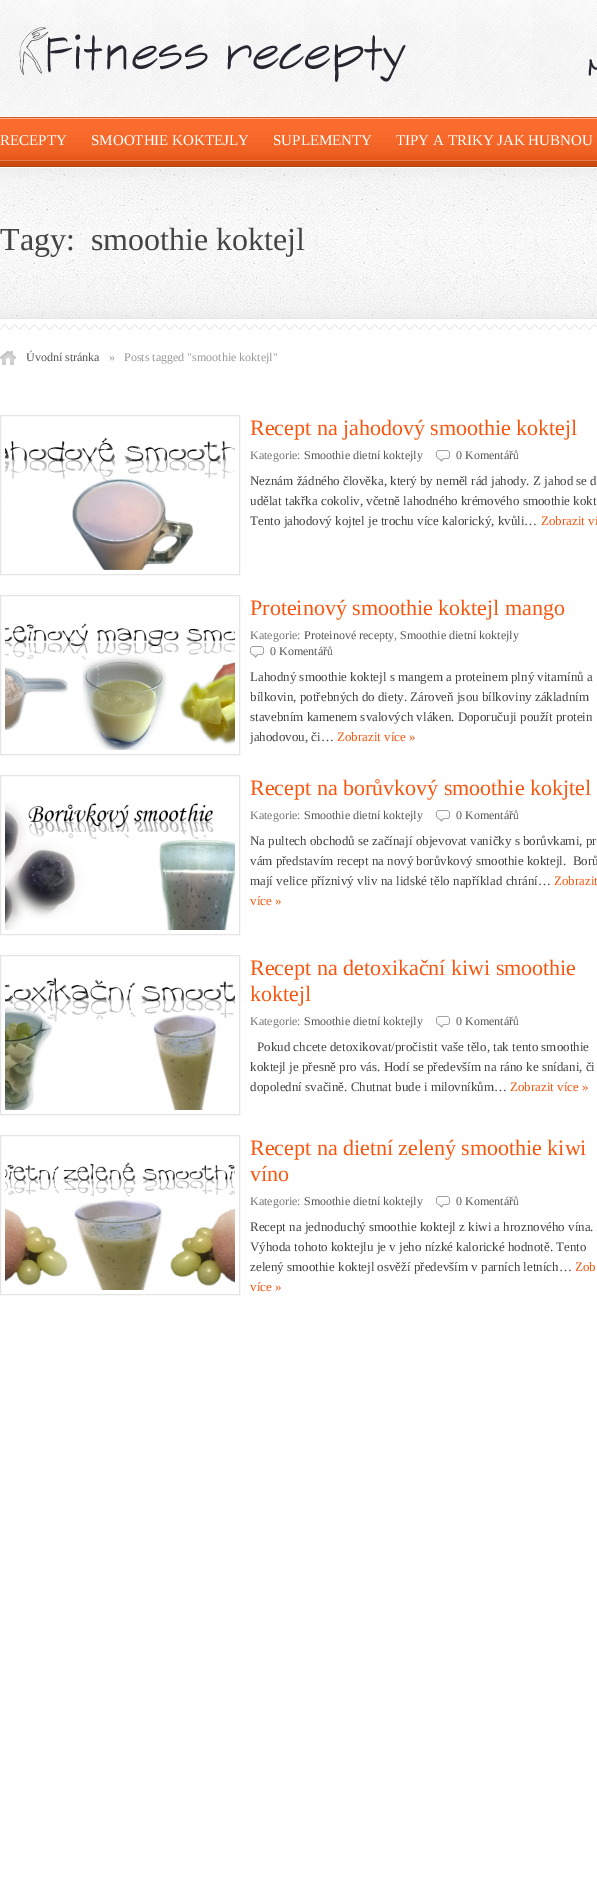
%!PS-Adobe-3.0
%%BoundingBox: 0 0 597 1885
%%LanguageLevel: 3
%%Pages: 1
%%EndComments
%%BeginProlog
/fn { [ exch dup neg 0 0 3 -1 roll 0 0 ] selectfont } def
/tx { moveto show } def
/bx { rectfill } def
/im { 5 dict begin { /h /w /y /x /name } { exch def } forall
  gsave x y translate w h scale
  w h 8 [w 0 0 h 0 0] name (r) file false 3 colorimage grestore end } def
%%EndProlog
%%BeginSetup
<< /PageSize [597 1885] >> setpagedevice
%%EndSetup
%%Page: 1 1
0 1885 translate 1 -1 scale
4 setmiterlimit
1 setgray
0 0 597 1885 bx
(image0.raw) 0 0 597 117 im
(image1.raw) 19 27 387 55 im
(image2.raw) 588 59 9 17 im
0.973 0.337 0.055 setrgbcolor
0 117 597 50 bx
(image3.raw) 0 117 597 50 im
/LiberationSerif-Regular 15 fn
1 setgray
(RECEPTY) 0 145 tx
(SMOOTHIE KOKTEJLY) 91 145 tx
(SUPLEMENTY) 273 145 tx
(TIPY A TRIKY JAK HUBNOU) 396 145 tx
(image4.raw) 0 168 597 162 im
/LiberationSerif-Regular 32 fn
0.267 setgray
(Tagy:  smoothie koktejl) 0 250 tx
(image5.raw) 0 350 16 15 im
/LiberationSerif-Regular 12 fn
0.333 setgray
(Úvodní stránka) 26 361 tx
0.6 setgray
(») 109 361 tx
(Posts tagged "smoothie koktejl") 124 361 tx
0.898 setgray
0.5 415.5 239 159 rectstroke
(image6.raw) 5 437 230 133 im
/LiberationSerif-Regular 22 fn
0.973 0.337 0.055 setrgbcolor
(Recept na jahodový smoothie koktejl) 250 435 tx
/LiberationSerif-Regular 12 fn
0.467 setgray
(Kategorie:) 250 459 tx
0.333 setgray
(Smoothie dietní koktejly) 304 459 tx
(image7.raw) 436 450 14 12 im
(0 Komentářů) 456 459 tx
/LiberationSerif-Regular 13 fn
0.267 setgray
(Neznám žádného člověka, který by neměl rád jahody. Z jahod se d) 250 485 tx
(udělat takřka cokoliv, včetně lahodného krémového smoothie kokt) 250 505 tx
(Tento jahodový kojtel je trochu více kalorický, kvůli…) 250 525 tx
0.973 0.337 0.055 setrgbcolor
(Zobrazit ví) 541 525 tx
0.898 setgray
0.5 595.5 239 159 rectstroke
(image8.raw) 5 623 230 127 im
/LiberationSerif-Regular 22 fn
0.973 0.337 0.055 setrgbcolor
(Proteinový smoothie koktejl mango) 250 615 tx
/LiberationSerif-Regular 12 fn
0.467 setgray
(Kategorie:) 250 639 tx
0.333 setgray
(Proteinové recepty) 304 639 tx
0.467 setgray
(,) 394 639 tx
0.333 setgray
(Smoothie dietní koktejly) 400 639 tx
(image7.raw) 250 646 14 12 im
(0 Komentářů) 270 655 tx
/LiberationSerif-Regular 13 fn
0.267 setgray
(Lahodný smoothie koktejl s mangem a proteinem plný vitamínů a) 250 681 tx
(bílkovin, potřebných do diety. Zároveň jsou bílkoviny základním) 250 701 tx
(stavebním kamenem svalových vláken. Doporučuji použít protein) 250 721 tx
(jahodovou, či…) 250 741 tx
0.973 0.337 0.055 setrgbcolor
(Zobrazit více ») 337 741 tx
0.898 setgray
0.5 775.5 239 159 rectstroke
(image9.raw) 5 801 230 129 im
/LiberationSerif-Regular 22 fn
0.973 0.337 0.055 setrgbcolor
(Recept na borůvkový smoothie kokjtel) 250 795 tx
/LiberationSerif-Regular 12 fn
0.467 setgray
(Kategorie:) 250 819 tx
0.333 setgray
(Smoothie dietní koktejly) 304 819 tx
(image7.raw) 436 810 14 12 im
(0 Komentářů) 456 819 tx
/LiberationSerif-Regular 13 fn
0.267 setgray
(Na pultech obchodů se začínají objevovat vaničky s borůvkami, pr) 250 845 tx
(vám představím recept na nový borůvkový smoothie koktejl.  Borů) 250 865 tx
(mají velice příznivý vliv na lidské tělo například chrání…) 250 885 tx
0.973 0.337 0.055 setrgbcolor
(Zobrazit) 554 885 tx
(více ») 250 905 tx
0.898 setgray
0.5 955.5 239 159 rectstroke
(image10.raw) 5 977 230 133 im
/LiberationSerif-Regular 22 fn
0.973 0.337 0.055 setrgbcolor
(Recept na detoxikační kiwi smoothie) 250 975 tx
(koktejl) 250 1001 tx
/LiberationSerif-Regular 12 fn
0.467 setgray
(Kategorie:) 250 1025 tx
0.333 setgray
(Smoothie dietní koktejly) 304 1025 tx
(image7.raw) 436 1016 14 12 im
(0 Komentářů) 456 1025 tx
/LiberationSerif-Regular 13 fn
0.267 setgray
(Pokud chcete detoxikovat/pročistit vaše tělo, tak tento smoothie) 257 1051 tx
(koktejl je přesně pro vás. Hodí se především na ráno ke snídani, či) 250 1071 tx
(dopolední svačině. Chutnat bude i milovníkům…) 250 1091 tx
0.973 0.337 0.055 setrgbcolor
(Zobrazit více ») 510 1091 tx
0.898 setgray
0.5 1135.5 239 159 rectstroke
(image11.raw) 5 1162 230 128 im
/LiberationSerif-Regular 22 fn
0.973 0.337 0.055 setrgbcolor
(Recept na dietní zelený smoothie kiwi) 250 1155 tx
(víno) 250 1181 tx
/LiberationSerif-Regular 12 fn
0.467 setgray
(Kategorie:) 250 1205 tx
0.333 setgray
(Smoothie dietní koktejly) 304 1205 tx
(image7.raw) 436 1196 14 12 im
(0 Komentářů) 456 1205 tx
/LiberationSerif-Regular 13 fn
0.267 setgray
(Recept na jednoduchý smoothie koktejl z kiwi a hroznového vína.) 250 1231 tx
(Výhoda tohoto koktejlu je v jeho nízké kalorické hodnotě. Tento) 250 1251 tx
(zelený smoothie koktejl osvěží především v parních letních…) 250 1271 tx
0.973 0.337 0.055 setrgbcolor
(Zob) 575 1271 tx
(více ») 250 1291 tx
showpage
%%EOF
